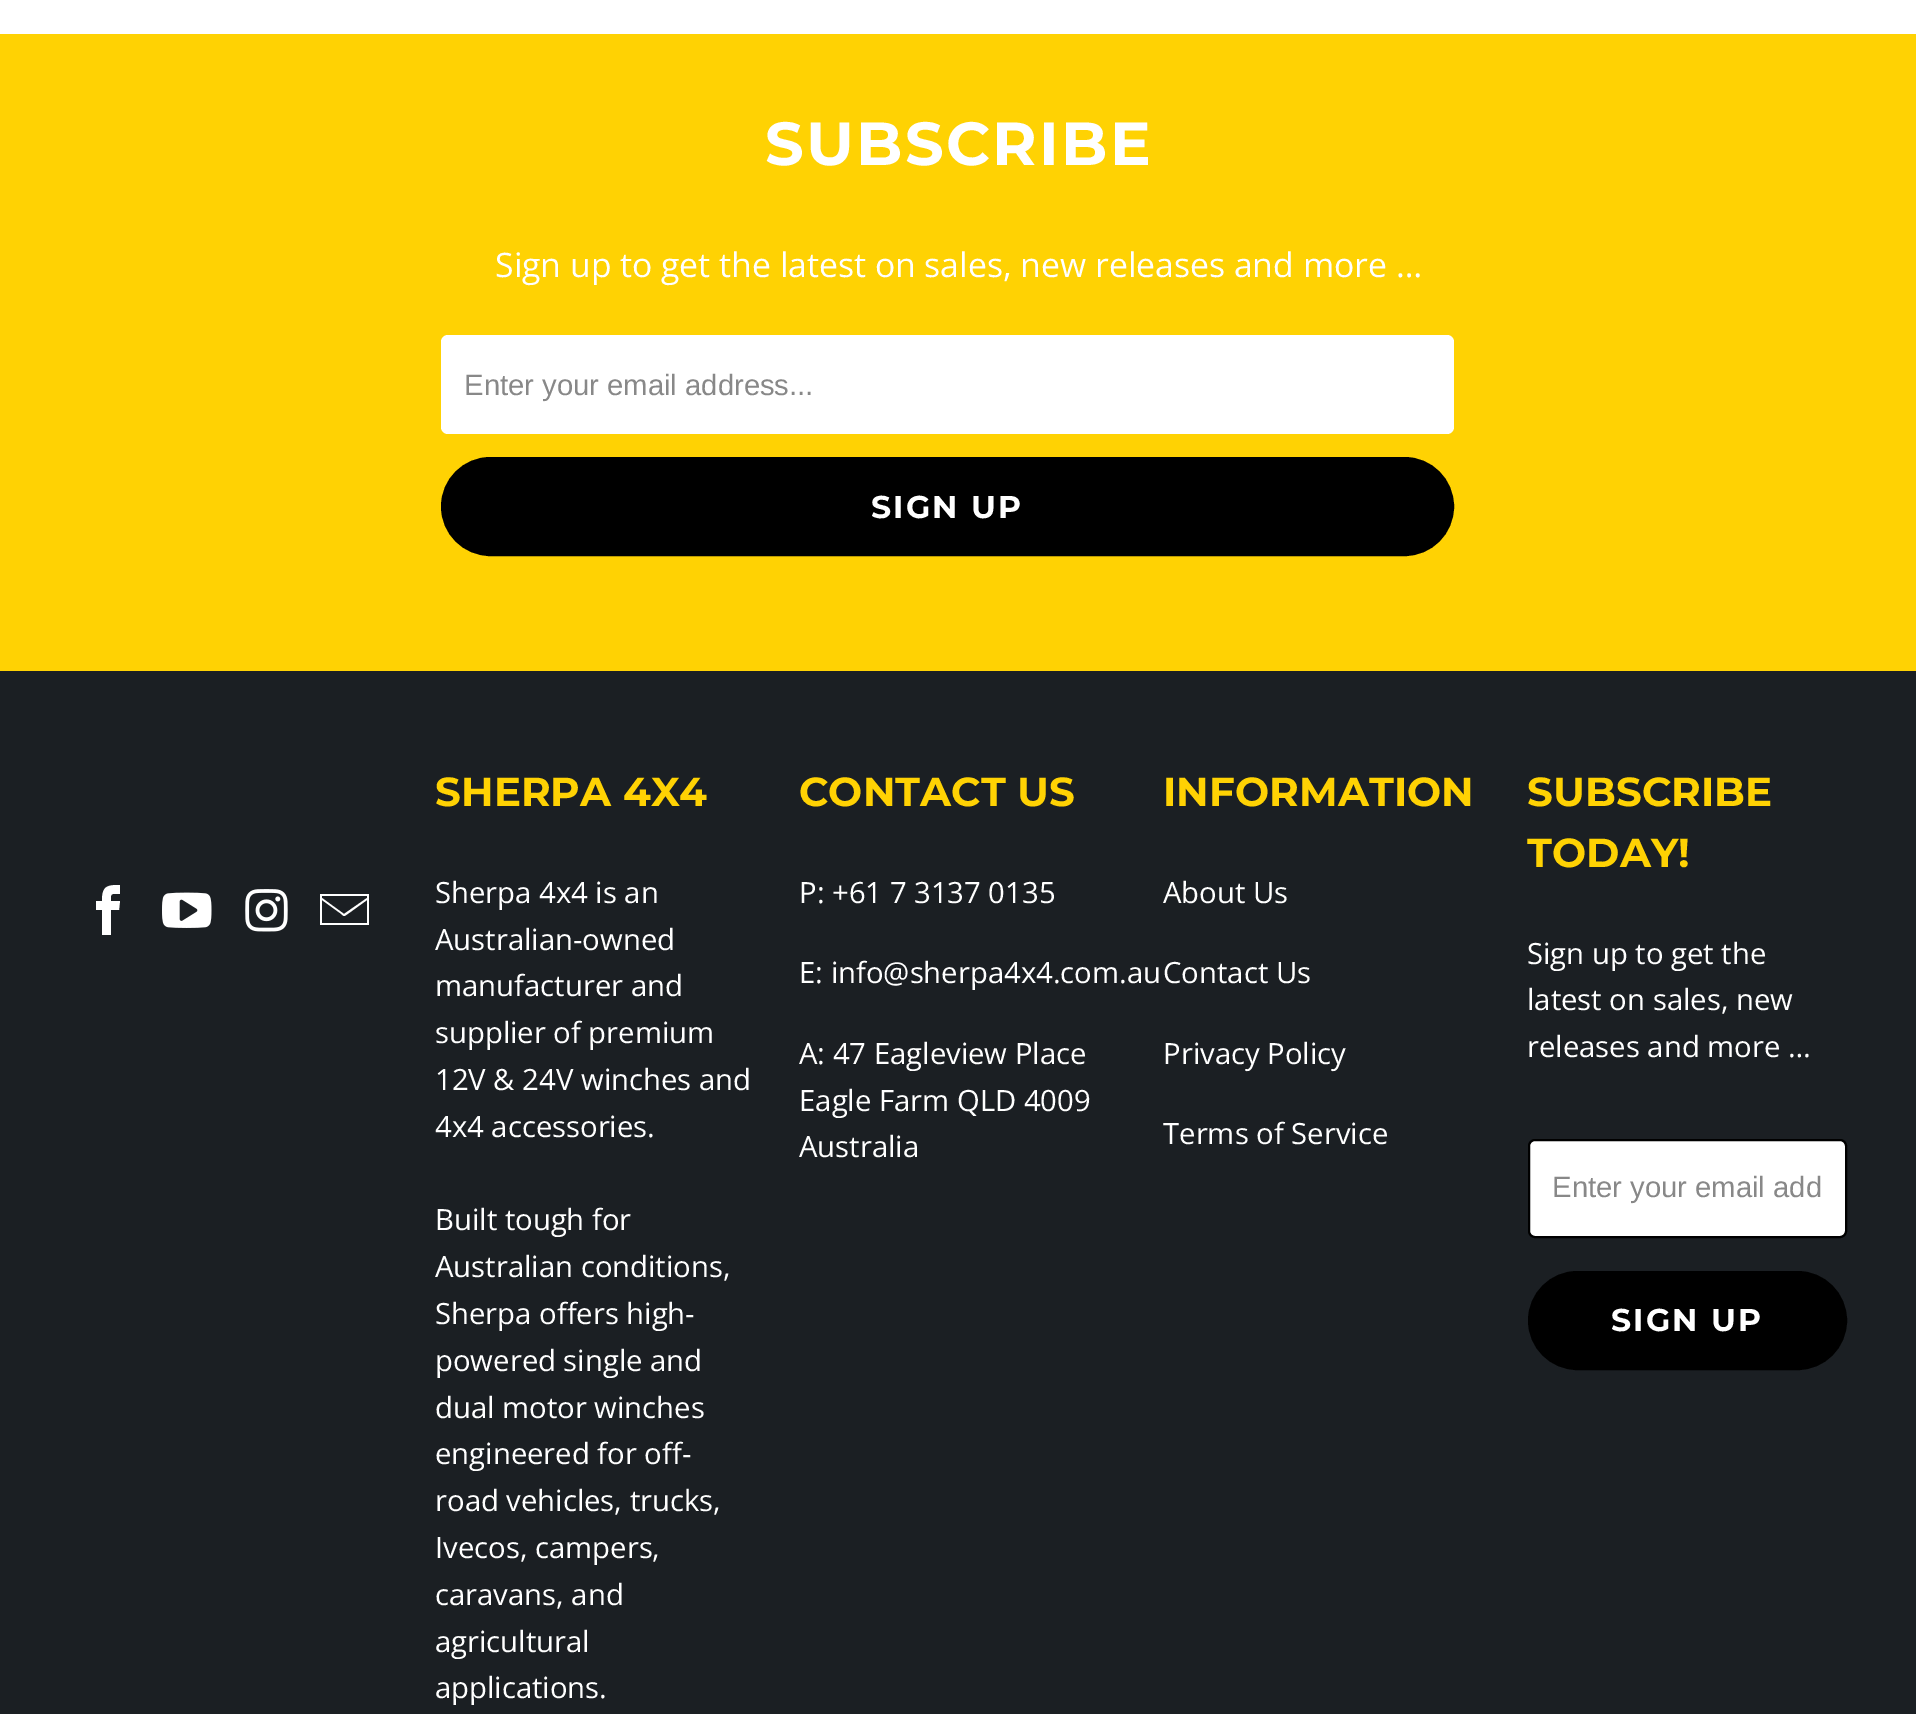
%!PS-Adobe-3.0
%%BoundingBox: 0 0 1916 1714
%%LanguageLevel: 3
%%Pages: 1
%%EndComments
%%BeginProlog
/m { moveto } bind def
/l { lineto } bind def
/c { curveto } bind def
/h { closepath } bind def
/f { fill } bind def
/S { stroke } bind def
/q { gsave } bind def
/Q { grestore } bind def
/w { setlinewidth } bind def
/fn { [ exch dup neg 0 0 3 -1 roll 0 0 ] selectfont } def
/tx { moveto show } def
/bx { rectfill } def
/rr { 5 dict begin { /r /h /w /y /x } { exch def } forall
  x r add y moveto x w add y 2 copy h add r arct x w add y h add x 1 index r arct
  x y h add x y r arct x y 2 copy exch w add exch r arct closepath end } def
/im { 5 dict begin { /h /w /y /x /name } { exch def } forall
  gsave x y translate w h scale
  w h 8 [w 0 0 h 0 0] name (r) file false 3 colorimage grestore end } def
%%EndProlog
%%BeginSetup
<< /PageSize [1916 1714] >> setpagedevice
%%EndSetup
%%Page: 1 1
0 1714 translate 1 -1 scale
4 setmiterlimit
1 setgray
0 0 1916 1714 bx
1 0.824 0.012 setrgbcolor
0 34 1916 637 bx
/Montserrat-Bold 60.75 fn
1 setgray
765 165 m 2.25 0 (SUBSCRIBE) ashow
/OpenSans-Regular 33.75 fn
(Sign up to get the latest on sales, new releases and more …) 495 277 tx
441 335 1013 99 7 rr f
/LiberationSans-Regular 29.25 fn
0.533 setgray
(Enter your email address...) 464 395 tx
0 setgray
442 458 1011 97 48.5 rr q f Q
2 w
S
/Montserrat-Bold 31.5 fn
1 setgray
871 518 m 2.25 0 (SIGN UP) ashow
0.106 0.122 0.137 setrgbcolor
0 671 1916 1043 bx
1 setgray
113 894 m 120 894 l 120 885 l 107 885 102 886 102 901 c 96 901 l 96 910 l 102 910 l 102 935 l 111 935 l 111 910 l 119 910 l 120 901 l 111 901 l 111 899 110 894 113 894 c h f
(image0.raw) 162 892 50 36 im
(image1.raw) 245 889 43 43 im
320 894 m 320 925 l 369 925 l 369 894 l h 367 896 m 367 898 l 344 914 l 322 898 l 322 896 l h 322 923 m 322 900 l 340 913 l 345 917 343 917 349 913 c 367 900 l 367 923 l h f
/Montserrat-Bold 40.5 fn
1 0.824 0.012 setrgbcolor
(SHERPA 4X4) 435 806 tx
/OpenSans-Regular 29.25 fn
1 setgray
(Sherpa 4x4 is an) 435 903 tx
(Australian-owned) 435 950 tx
(manufacturer and) 435 996 tx
(supplier of premium) 435 1043 tx
(12V & 24V winches and) 435 1090 tx
(4x4 accessories.) 435 1137 tx
(Built tough for) 435 1230 tx
(Australian conditions,) 435 1277 tx
(Sherpa offers high-) 435 1324 tx
(powered single and) 435 1371 tx
(dual motor winches) 435 1418 tx
(engineered for off-) 435 1464 tx
(road vehicles, trucks,) 435 1511 tx
(Ivecos, campers,) 435 1558 tx
(caravans, and) 435 1605 tx
(agricultural) 435 1652 tx
(applications.) 435 1698 tx
/Montserrat-Bold 40.5 fn
1 0.824 0.012 setrgbcolor
(CONTACT US) 799 806 tx
/OpenSans-Regular 29.25 fn
1 setgray
(P: +61 7 3137 0135) 799 903 tx
(E: info@sherpa4x4.com.au) 799 983 tx
(A: 47 Eagleview Place) 799 1064 tx
(Eagle Farm QLD 4009) 799 1111 tx
(Australia) 799 1157 tx
/Montserrat-Bold 40.5 fn
1 0.824 0.012 setrgbcolor
(INFORMATION) 1163 806 tx
/OpenSans-Regular 29.25 fn
1 setgray
(About Us) 1163 903 tx
(Contact Us) 1163 983 tx
(Privacy Policy) 1163 1064 tx
(Terms of Service) 1163 1144 tx
/Montserrat-Bold 40.5 fn
1 0.824 0.012 setrgbcolor
(SUBSCRIBE) 1527 806 tx
(TODAY!) 1527 867 tx
/OpenSans-Regular 29.25 fn
1 setgray
(Sign up to get the) 1527 964 tx
(latest on sales, new) 1527 1010 tx
(releases and more …) 1527 1057 tx
1529 1140 317 97 6 rr q f Q
0 setgray
S
/LiberationSans-Regular 29.25 fn
0.533 setgray
(Enter your email add) 1552 1197 tx
0 setgray
1529 1272 317 97 48.5 rr q f Q
S
/Montserrat-Bold 31.5 fn
1 setgray
1611 1331 m 2.25 0 (SIGN UP) ashow
showpage
%%EOF
